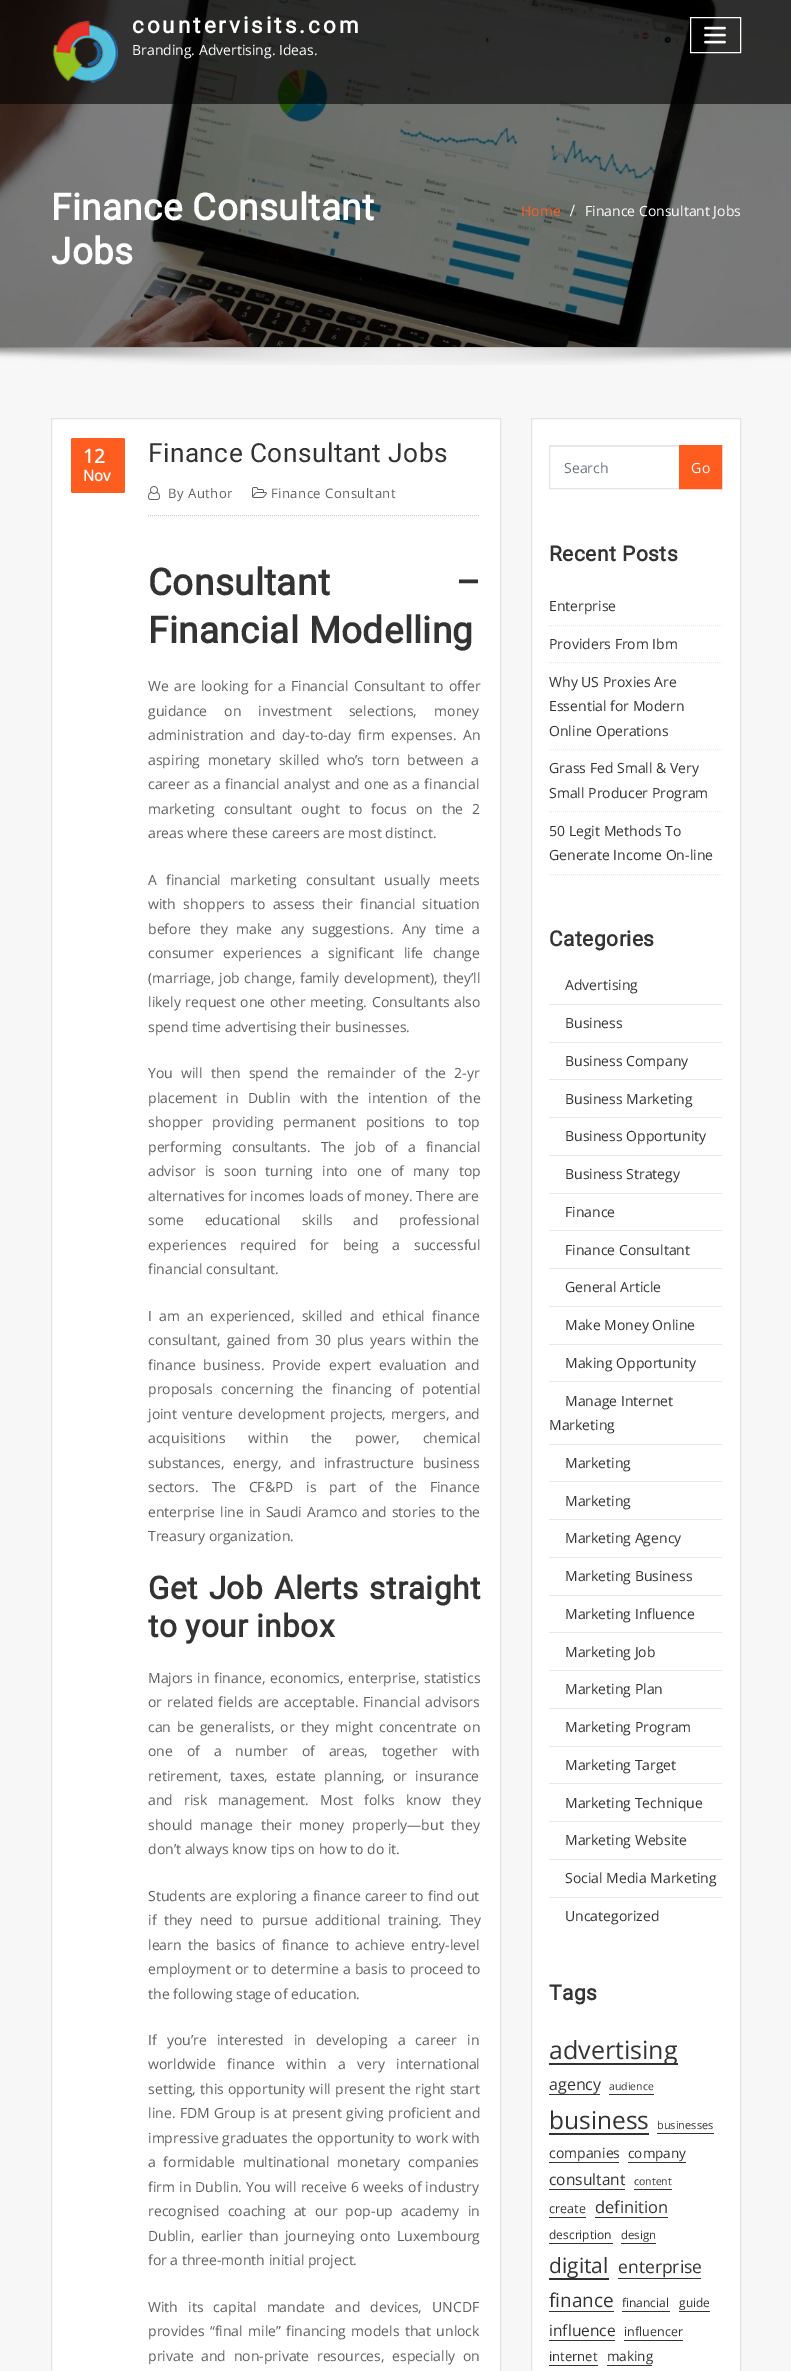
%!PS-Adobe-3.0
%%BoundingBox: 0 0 791 2371
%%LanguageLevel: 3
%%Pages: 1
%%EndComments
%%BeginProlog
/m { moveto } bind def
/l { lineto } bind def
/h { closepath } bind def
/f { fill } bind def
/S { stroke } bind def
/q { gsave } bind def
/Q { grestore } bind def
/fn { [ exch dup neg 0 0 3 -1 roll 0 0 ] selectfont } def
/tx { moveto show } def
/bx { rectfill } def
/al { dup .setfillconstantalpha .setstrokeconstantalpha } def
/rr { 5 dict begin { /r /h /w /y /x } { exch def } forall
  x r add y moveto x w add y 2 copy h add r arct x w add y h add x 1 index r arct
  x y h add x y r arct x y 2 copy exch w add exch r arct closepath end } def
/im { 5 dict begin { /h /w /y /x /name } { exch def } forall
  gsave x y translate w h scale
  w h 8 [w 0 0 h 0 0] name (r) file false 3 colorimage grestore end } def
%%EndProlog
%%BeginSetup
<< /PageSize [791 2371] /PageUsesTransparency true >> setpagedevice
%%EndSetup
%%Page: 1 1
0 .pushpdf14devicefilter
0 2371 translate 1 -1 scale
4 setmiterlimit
1 setgray
0 0 791 2371 bx
(image2.raw) 0 0 791 347 im
0.6 al
0 setgray
0 0 791 104 bx
1 al
(image0.raw) 52 20 66 64 im
/Roboto-Bold 22.4 fn
1 setgray
132 33 m 3 0 (countervisits.com) ashow
/OpenSans-Regular 14 fn
(Branding. Advertising. Ideas.) 132 55 tx
690.5 17.5 50 35 rectstroke
(image1.raw) 704 26 22 18 im
/Roboto-Bold 36.75 fn
51 220 m 0.45 0 (Finance Consultant) ashow
51 264 m 0.45 0 (Jobs) ashow
/OpenSans-Regular 14 fn
1 0.365 0.125 setrgbcolor
(Home) 521 216 tx
/LiberationSerif-Bold 17 fn
1 setgray
570 216 m 1 0 (/) ashow
/OpenSans-Regular 14 fn
(Finance Consultant Jobs) 585 216 tx
0.969 setgray
0 348 791 2023 bx
0.894 setgray
0 347 791 1 bx
(image3.raw) 0 347 791 18 im
1 setgray
51.5 418.5 m 500.5 418.5 l 500.5 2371.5 l 51.5 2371.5 l h q f Q
0.894 setgray
S
1 0.365 0.125 setrgbcolor
71 438 54 55 2 rr f
/OpenSans-Bold 19 fn
1 setgray
(12) 83 463 tx
/OpenSans-Bold 15 fn
(Nov) 83 481 tx
/Roboto-Regular 26.25 fn
0.2 setgray
148 462 m 0.45 0 (Finance Consultant Jobs) ashow
0.804 setgray
[1 1] 0 setdash
148 515.5 m 480 515.5 l S
(image4.raw) 148 486 12 14 im
/OpenSans-Regular 13.1 fn
0.376 setgray
168 498 m 0.45 0 (By Author) ashow
(image5.raw) 252 487 15 11 im
271 498 m 0.45 0 (Finance Consultant) ashow
/Roboto-Bold 36.75 fn
0.2 setgray
148 595 m 116 0 32 0.45 0 (Consultant –) awidthshow
148 643 m 0.45 0 (Financial Modelling) ashow
/OpenSans-Regular 14 fn
0.376 setgray
148 691 m 1.75 0 32 (We are looking for a Financial Consultant to offer) widthshow
148 716 m 13.5 0 32 (guidance on investment selections, money) widthshow
148 740 m 3 0 32 (administration and day-to-day firm expenses. An) widthshow
148 765 m 4 0 32 (aspiring monetary skilled who’s torn between a) widthshow
148 789 m 0.75 0 32 (career as a financial analyst and one as a financial) widthshow
148 814 m 5.5 0 32 (marketing consultant ought to focus on the 2) widthshow
(areas where these careers are most distinct.) 148 838 tx
148 885 m 5.75 0 32 (A financial marketing consultant usually meets) widthshow
148 909 m 3.75 0 32 (with shoppers to assess their financial situation) widthshow
148 934 m 4.75 0 32 (before they make any suggestions. Any time a) widthshow
148 958 m 5.75 0 32 (consumer experiences a significant life change) widthshow
148 983 m 1 0 32 (\(marriage, job change, family development\), they’ll) widthshow
148 1007 m 1 0 32 (likely request one other meeting. Consultants also) widthshow
(spend time advertising their businesses.) 148 1032 tx
148 1078 m 4.5 0 32 (You will then spend the remainder of the 2-yr) widthshow
148 1103 m 5.75 0 32 (placement in Dublin with the intention of the) widthshow
148 1127 m 6 0 32 (shopper providing permanent positions to top) widthshow
148 1152 m 6.25 0 32 (performing consultants. The job of a financial) widthshow
148 1176 m 5.5 0 32 (advisor is soon turning into one of many top) widthshow
(alternatives for incomes loads of money. There are) 148 1201 tx
148 1225 m 17 0 32 (some educational skills and professional) widthshow
148 1250 m 10 0 32 (experiences required for being a successful) widthshow
(financial consultant.) 148 1274 tx
148 1321 m 3.5 0 32 (I am an experienced, skilled and ethical finance) widthshow
148 1345 m 2.5 0 32 (consultant, gained from 30 plus years within the) widthshow
148 1370 m 4 0 32 (finance business. Provide expert evaluation and) widthshow
148 1394 m 5 0 32 (proposals concerning the financing of potential) widthshow
148 1419 m 1.75 0 32 (joint venture development projects, mergers, and) widthshow
148 1443 m 19 0 32 (acquisitions within the power, chemical) widthshow
148 1468 m 5 0 32 (substances, energy, and infrastructure business) widthshow
148 1492 m 9.25 0 32 (sectors. The CF&PD is part of the Finance) widthshow
148 1517 m 1.25 0 32 (enterprise line in Saudi Aramco and stories to the) widthshow
(Treasury organization.) 148 1541 tx
/Roboto-Bold 31.5 fn
0.2 setgray
148 1599 m 2.5 0 32 0.45 0 (Get Job Alerts straight) awidthshow
148 1637 m 0.45 0 (to your inbox) ashow
/OpenSans-Regular 14 fn
0.376 setgray
148 1683 m 1 0 32 (Majors in finance, economics, enterprise, statistics) widthshow
148 1707 m 1.25 0 32 (or related fields are acceptable. Financial advisors) widthshow
148 1732 m 2.5 0 32 (can be generalists, or they might concentrate on) widthshow
148 1756 m 10.25 0 32 (one of a number of areas, together with) widthshow
148 1781 m 4.5 0 32 (retirement, taxes, estate planning, or insurance) widthshow
148 1805 m 7.5 0 32 (and risk management. Most folks know they) widthshow
148 1830 m 4.25 0 32 (should manage their money properly—but they) widthshow
(don’t always know tips on how to do it.) 148 1854 tx
148 1901 m 0.5 0 32 (Students are exploring a finance career to find out) widthshow
148 1925 m 4 0 32 (if they need to pursue additional training. They) widthshow
148 1950 m 2.75 0 32 (learn the basics of finance to achieve entry-level) widthshow
148 1974 m 0.5 0 32 (employment or to determine a basis to proceed to) widthshow
(the following stage of education.) 148 1999 tx
148 2045 m 6.5 0 32 (If you’re interested in developing a career in) widthshow
148 2069 m 7.75 0 32 (worldwide finance within a very international) widthshow
148 2094 m 0.5 0 32 (setting, this opportunity will present the right start) widthshow
148 2118 m 0.75 0 32 (line. FDM Group is at present giving proficient and) widthshow
148 2143 m 0.25 0 32 (impressive graduates the opportunity to work with) widthshow
148 2167 m 4 0 32 (a formidable multinational monetary companies) widthshow
148 2192 m 0.5 0 32 (firm in Dublin. You will receive 6 weeks of industry) widthshow
148 2216 m 4.5 0 32 (recognised coaching at our pop-up academy in) widthshow
148 2241 m 2.5 0 32 (Dublin, earlier than journeying onto Luxembourg) widthshow
(for a three-month initial project.) 148 2265 tx
148 2312 m 6.5 0 32 (With its capital mandate and devices, UNCDF) widthshow
148 2336 m 1.75 0 32 (provides “final mile” financing models that unlock) widthshow
148 2361 m 4 0 32 (private and non-private resources, especially on) widthshow
1 setgray
531.5 418.5 m 740.5 418.5 l 740.5 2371.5 l 531.5 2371.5 l h q f Q
0.894 setgray
[] 0 setdash
S
0.925 setgray
550 446 129 1 bx
0.898 setgray
549.5 445.5 130 43 rectstroke
0.424 0.459 0.49 setrgbcolor
(Search) 564 473 tx
1 0.365 0.125 setrgbcolor
679.5 445.5 m 721.5 445.5 l 721.5 488.5 l 679.5 488.5 l h q f Q
S
1 setgray
691 473 m 0.45 0 (Go) ashow
/Roboto-Bold 21 fn
0.2 setgray
549 561 m 0.45 0 (Recent Posts) ashow
0.914 setgray
[1 1] 0 setdash
549 625.5 m 722 625.5 l S
/OpenSans-Regular 14 fn
0.2 setgray
(Enterprise) 549 611 tx
0.914 setgray
549 662.5 m 722 662.5 l S
0.2 setgray
(Providers From Ibm) 549 649 tx
0.914 setgray
549 749.5 m 722 749.5 l S
0.2 setgray
(Why US Proxies Are) 549 687 tx
(Essential for Modern) 549 711 tx
(Online Operations) 549 736 tx
0.914 setgray
549 811.5 m 722 811.5 l S
0.2 setgray
(Grass Fed Small & Very) 549 773 tx
(Small Producer Program) 549 798 tx
0.914 setgray
549 874.5 m 722 874.5 l S
0.2 setgray
(50 Legit Methods To) 549 836 tx
(Generate Income On-line) 549 860 tx
/Roboto-Bold 21 fn
549 946 m 0.45 0 (Categories) ashow
0.914 setgray
549 1004 173 1 bx
/OpenSans-Regular 14 fn
0.2 setgray
(Advertising) 565 990 tx
0.914 setgray
549 1042 173 1 bx
0.2 setgray
(Business) 565 1028 tx
0.914 setgray
549 1079 173 1 bx
0.2 setgray
(Business Company) 565 1066 tx
0.914 setgray
549 1117 173 1 bx
0.2 setgray
(Business Marketing) 565 1104 tx
0.914 setgray
549 1155 173 1 bx
0.2 setgray
(Business Opportunity) 565 1141 tx
0.914 setgray
549 1193 173 1 bx
0.2 setgray
(Business Strategy) 565 1179 tx
0.914 setgray
549 1230 173 1 bx
0.2 setgray
(Finance) 565 1217 tx
0.914 setgray
549 1268 173 1 bx
0.2 setgray
(Finance Consultant) 565 1255 tx
0.914 setgray
549 1306 173 1 bx
0.2 setgray
(General Article) 565 1292 tx
0.914 setgray
549 1344 173 1 bx
0.2 setgray
(Make Money Online) 565 1330 tx
0.914 setgray
549 1381 173 1 bx
0.2 setgray
(Making Opportunity) 565 1368 tx
0.914 setgray
549 1444 173 1 bx
0.2 setgray
(Manage Internet) 565 1406 tx
(Marketing) 549 1430 tx
0.914 setgray
549 1481 173 1 bx
0.2 setgray
(Marketing) 565 1468 tx
0.914 setgray
549 1519 173 1 bx
0.2 setgray
(Marketing) 565 1506 tx
0.914 setgray
549 1557 173 1 bx
0.2 setgray
(Marketing Agency) 565 1543 tx
0.914 setgray
549 1595 173 1 bx
0.2 setgray
(Marketing Business) 565 1581 tx
0.914 setgray
549 1632 173 1 bx
0.2 setgray
(Marketing Influence) 565 1619 tx
0.914 setgray
549 1670 173 1 bx
0.2 setgray
(Marketing Job) 565 1657 tx
0.914 setgray
549 1708 173 1 bx
0.2 setgray
(Marketing Plan) 565 1694 tx
0.914 setgray
549 1746 173 1 bx
0.2 setgray
(Marketing Program) 565 1732 tx
0.914 setgray
549 1783 173 1 bx
0.2 setgray
(Marketing Target) 565 1770 tx
0.914 setgray
549 1821 173 1 bx
0.2 setgray
(Marketing Technique) 565 1808 tx
0.914 setgray
549 1859 173 1 bx
0.2 setgray
(Marketing Website) 565 1845 tx
0.914 setgray
549 1897 173 1 bx
0.2 setgray
(Social Media Marketing) 565 1883 tx
(Uncategorized) 565 1921 tx
/Roboto-Bold 21 fn
549 2000 m 0.45 0 (Tags) ashow
549 2063 129 2 bx
/OpenSans-Regular 25 fn
(advertising) 549 2059 tx
/OpenSans-Regular 16 fn
(agency) 549 2090 tx
549 2094 51 1 bx
/OpenSans-Regular 10.5 fn
(audience) 609 2090 tx
609 2094 45 1 bx
/OpenSans-Regular 24.5 fn
(business) 549 2129 tx
549 2133 100 2 bx
/OpenSans-Regular 11 fn
(businesses) 657 2129 tx
657 2133 57 1 bx
/OpenSans-Regular 14 fn
(companies) 549 2158 tx
549 2162 70 1 bx
/OpenSans-Regular 13.5 fn
(company) 628 2158 tx
628 2162 58 1 bx
/OpenSans-Regular 15.5 fn
(consultant) 549 2185 tx
549 2189 76 1 bx
/OpenSans-Regular 10.5 fn
(content) 634 2185 tx
634 2189 38 1 bx
/OpenSans-Regular 12.5 fn
(create) 549 2213 tx
549 2217 37 1 bx
/OpenSans-Regular 16.5 fn
(definition) 595 2213 tx
595 2217 73 1 bx
/OpenSans-Regular 12 fn
(description) 549 2239 tx
549 2243 64 1 bx
/OpenSans-Regular 11.5 fn
(design) 621 2239 tx
621 2243 35 1 bx
549 2278 60 2 bx
/OpenSans-Regular 21 fn
(digital) 549 2273 tx
/OpenSans-Regular 17.5 fn
(enterprise) 618 2273 tx
618 2278 83 1 bx
/OpenSans-Regular 19 fn
(finance) 549 2307 tx
549 2311 65 1 bx
/OpenSans-Regular 12 fn
(financial) 622 2307 tx
622 2311 48 1 bx
(guide) 679 2307 tx
679 2311 31 1 bx
/OpenSans-Regular 15.5 fn
(influence) 549 2336 tx
549 2340 66 1 bx
/OpenSans-Regular 12.5 fn
(influencer) 624 2336 tx
624 2340 59 1 bx
/OpenSans-Regular 13 fn
(internet) 549 2361 tx
549 2365 49 1 bx
/OpenSans-Regular 13.5 fn
(making) 607 2361 tx
607 2365 45 1 bx
.poppdf14devicefilter showpage
%%EOF
